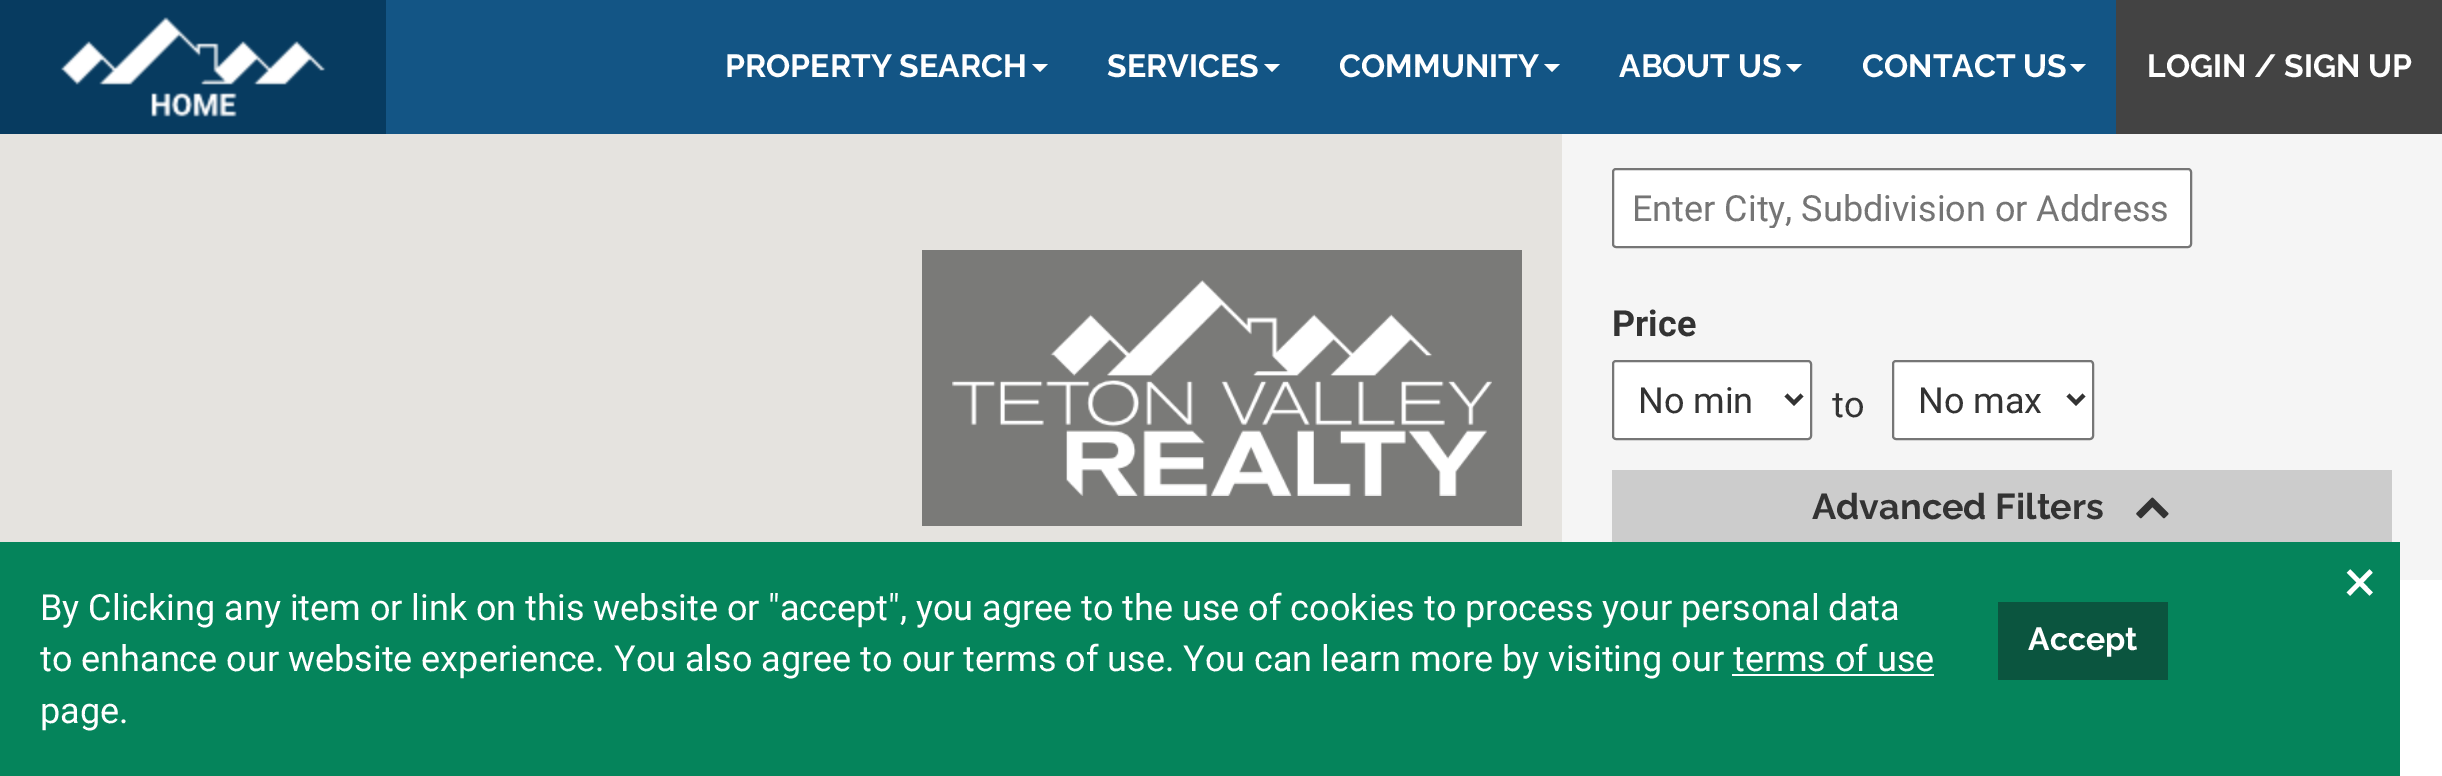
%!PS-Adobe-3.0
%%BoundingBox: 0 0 2442 776
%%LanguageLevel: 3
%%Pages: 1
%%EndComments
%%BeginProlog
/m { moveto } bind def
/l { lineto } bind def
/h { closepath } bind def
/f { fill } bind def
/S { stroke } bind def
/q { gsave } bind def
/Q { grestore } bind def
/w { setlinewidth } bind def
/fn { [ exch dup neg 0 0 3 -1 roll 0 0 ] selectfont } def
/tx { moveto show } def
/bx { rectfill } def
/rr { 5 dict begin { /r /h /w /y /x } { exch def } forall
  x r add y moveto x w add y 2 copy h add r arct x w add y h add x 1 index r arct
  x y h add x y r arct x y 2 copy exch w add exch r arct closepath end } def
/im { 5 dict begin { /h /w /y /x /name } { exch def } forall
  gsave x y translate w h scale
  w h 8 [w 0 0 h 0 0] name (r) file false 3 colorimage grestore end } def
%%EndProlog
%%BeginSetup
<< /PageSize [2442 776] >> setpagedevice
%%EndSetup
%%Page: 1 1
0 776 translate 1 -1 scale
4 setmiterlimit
1 setgray
0 0 2442 776 bx
0.075 0.333 0.522 setrgbcolor
386 0 1730 134 bx
0.027 0.231 0.376 setrgbcolor
0 0 386 134 bx
(image0.raw) 60 17 266 100 im
/Raleway-Bold 32 fn
1 setgray
(PROPERTY SEARCH) 725 77 tx
1032 64 m 1048 64 l 1040 72 l h f
(SERVICES) 1107 77 tx
1264 64 m 1280 64 l 1272 72 l h f
(COMMUNITY) 1339 77 tx
1544 64 m 1560 64 l 1552 72 l h f
(ABOUT US) 1619 77 tx
1786 64 m 1802 64 l 1794 72 l h f
(CONTACT US) 1862 77 tx
2070 64 m 2086 64 l 2078 72 l h f
0.263 setgray
2116 0 326 134 bx
1 setgray
(LOGIN / SIGN UP) 2147 77 tx
0.898 0.89 0.875 setrgbcolor
0 134 1562 408 bx
0.478 0.478 0.471 setrgbcolor
922 250 600 276 bx
(image1.raw) 952 280 540 216 im
0.961 setgray
1562 134 880 446 bx
1 setgray
1613 169 578 78 3 rr q f Q
0.463 setgray
2 w
S
q
1632 186 540 42 rectclip
/Roboto-Regular 36 fn
0.459 setgray
(Enter City, Subdivision or Address) 1632 221 tx
Q
/Roboto-Bold 36 fn
0.2 setgray
(Price) 1612 336 tx
1 setgray
1613 361 198 78 3 rr q f Q
0.463 setgray
S
0.2 setgray
4 w
1786 395 m 1794 403 l 1802 395 l S
/Roboto-Regular 36 fn
(No min) 1638 413 tx
(to) 1832 417 tx
1 setgray
1893 361 200 78 3 rr q f Q
0.463 setgray
2 w
S
0.2 setgray
4 w
2068 395 m 2076 403 l 2084 395 l S
(No max) 1918 413 tx
0.8 setgray
1612 470 780 72 bx
/Raleway-Bold 36 fn
0.2 setgray
(Advanced Filters) 1812 519 tx
(image2.raw) 2136 497 33 22 im
0.02 0.518 0.357 setrgbcolor
0 542 2400 234 bx
/Roboto-Regular 60 fn
1 setgray
(×) 2344 602 tx
/Roboto-Regular 36 fn
(By Clicking any item or link on this website or "accept", you agree to the use of cookies to process your personal data) 40 620 tx
(to enhance our website experience. You also agree to our terms of use. You can learn more by visiting our terms of use) 40 671 tx
1732 674 202 2 bx
(page.) 40 723 tx
0.043 0.333 0.247 setrgbcolor
1998 602 170 78 bx
/Raleway-Bold 32 fn
1 setgray
(Accept) 2028 650 tx
showpage
%%EOF
